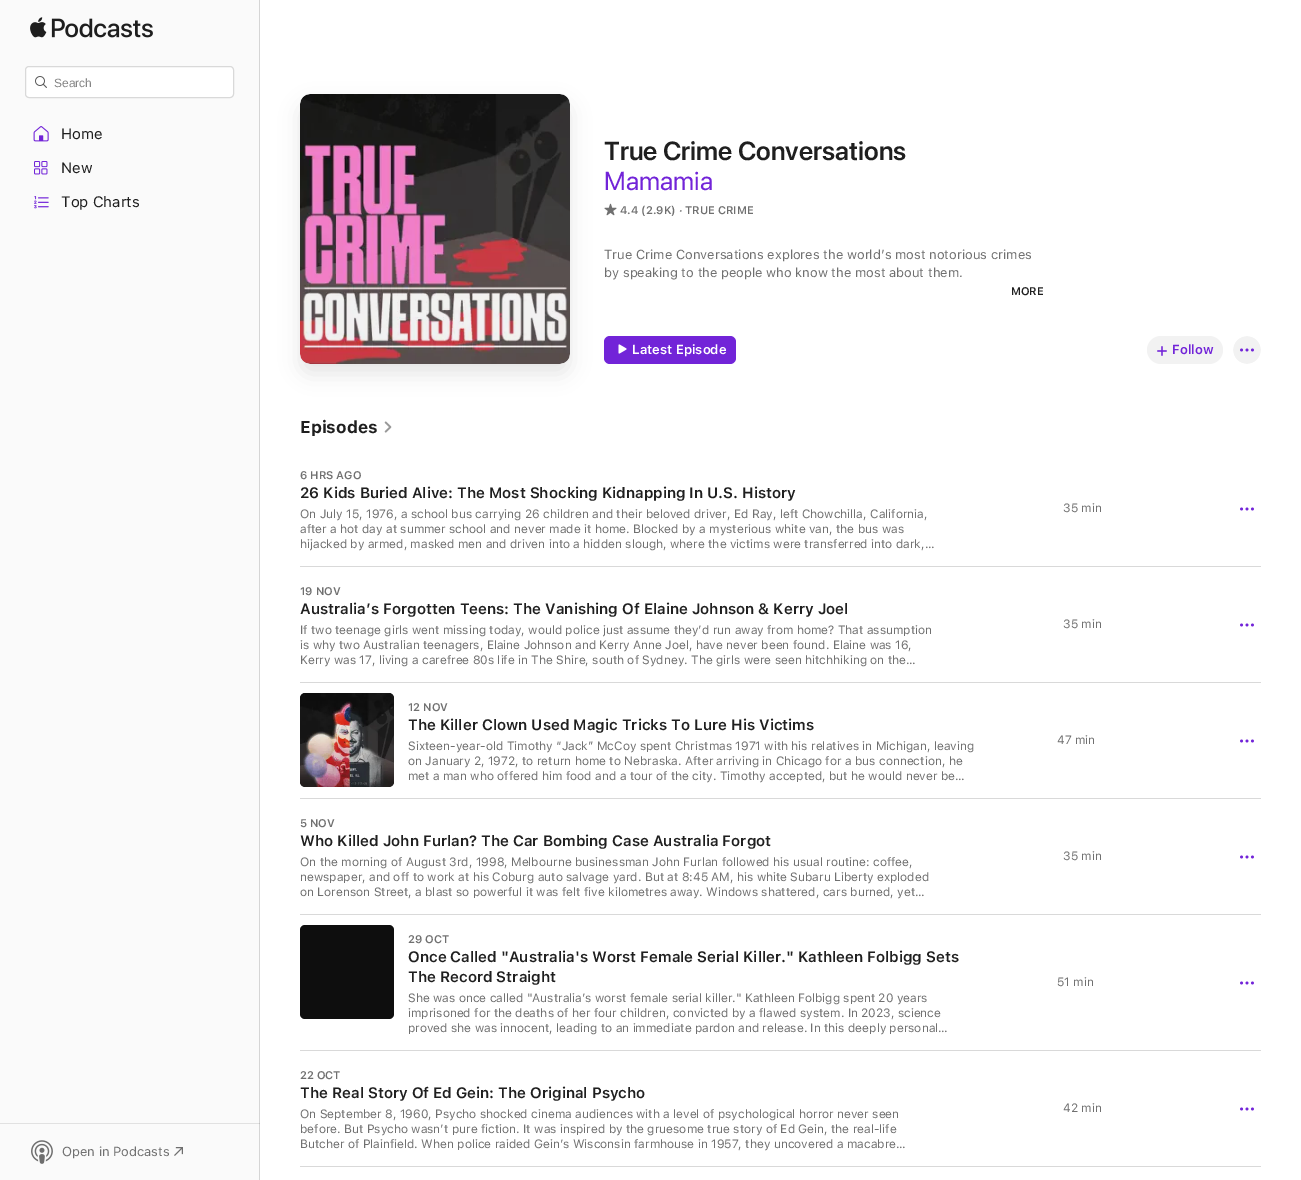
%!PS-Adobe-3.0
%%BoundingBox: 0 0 1301 1180
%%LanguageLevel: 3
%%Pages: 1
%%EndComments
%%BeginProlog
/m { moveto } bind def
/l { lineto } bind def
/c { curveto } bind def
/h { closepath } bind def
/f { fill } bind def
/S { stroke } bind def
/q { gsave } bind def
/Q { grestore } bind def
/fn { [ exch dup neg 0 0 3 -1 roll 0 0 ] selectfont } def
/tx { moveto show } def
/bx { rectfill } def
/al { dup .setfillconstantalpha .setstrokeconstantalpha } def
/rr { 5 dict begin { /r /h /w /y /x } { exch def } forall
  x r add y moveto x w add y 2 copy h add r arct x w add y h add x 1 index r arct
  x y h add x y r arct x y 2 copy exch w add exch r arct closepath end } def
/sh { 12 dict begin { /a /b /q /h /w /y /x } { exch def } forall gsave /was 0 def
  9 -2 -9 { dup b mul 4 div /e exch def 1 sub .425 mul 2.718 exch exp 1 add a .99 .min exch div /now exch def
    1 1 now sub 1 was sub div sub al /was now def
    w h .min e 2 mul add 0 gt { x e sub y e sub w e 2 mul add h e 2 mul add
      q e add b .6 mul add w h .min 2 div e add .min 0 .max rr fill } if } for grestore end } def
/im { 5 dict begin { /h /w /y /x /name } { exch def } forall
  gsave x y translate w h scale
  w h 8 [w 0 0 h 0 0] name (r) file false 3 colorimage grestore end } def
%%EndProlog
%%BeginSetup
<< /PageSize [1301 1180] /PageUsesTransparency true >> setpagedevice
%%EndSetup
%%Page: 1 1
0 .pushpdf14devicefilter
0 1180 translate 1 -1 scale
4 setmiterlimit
1 setgray
0 0 1301 1180 bx
0.98 setgray
0 0 259 1180 bx
0.882 setgray
0 1123 260 1 bx
0.835 setgray
259 0 1 1180 bx
0.753 setgray
259 1123 1 1 bx
(image0.raw) 30 17 123 21 im
1 setgray
25.5 66.5 208 31 3.5 rr q f Q
0.851 setgray
S
(image1.raw) 35 76 12 12 im
/LiberationSans-Regular 12 fn
0.522 setgray
(Search) 54 87 tx
(image2.raw) 33 126 16 16 im
/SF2-Regular 15 fn
0.122 setgray
(Home) 61 139 tx
(image3.raw) 34 161 14 14 im
(New) 61 173 tx
(image4.raw) 34 196 15 13 im
(Top Charts) 61 207 tx
(image5.raw) 31 1140 22 24 im
/SF2-Regular 13 fn
0.439 setgray
(Open in Podcasts) 62 1156 tx
(image6.raw) 174 1147 9 9 im
0 setgray
300 104 270 270 10 10 0.1 sh
(image7.raw) 300 94 270 270 im
0.1 al
0.502 setgray
310 94 m 560 94 l 566 94 570 98 570 104 c 570 354 l 570 360 566 364 560 364 c 310 364 l 304 364 300 360 300 354 c 300 104 l 300 98 304 94 310 94 c h f
/SF2-SemiBold 26 fn
1 al
0.122 setgray
(True Crime Conversations) 604 160 tx
/SF-Regular 26 fn
0.447 0.141 0.847 setrgbcolor
(Mamamia) 604 190 tx
(image8.raw) 604 203 13 13 im
/SF-SemiBold 11 fn
0.439 setgray
(4.4 \(2.9K\) · TRUE CRIME) 620 214 tx
/SF2-Regular 13 fn
(True Crime Conversations explores the world’s most notorious crimes) 604 259 tx
(by speaking to the people who know the most about them.) 604 277 tx
/SF-SemiBold 11 fn
0.122 setgray
(MORE) 1011 295 tx
0.447 0.141 0.847 setrgbcolor
604 336 132 28 6 rr f
(image9.raw) 618 344 9 10 im
/SF-SemiBold 13 fn
1 setgray
(Latest Episode) 632 354 tx
0.949 setgray
1147 336 76 28 14 rr f
(image10.raw) 1157 346 10 10 im
0.447 0.141 0.847 setrgbcolor
(Follow) 1172 354 tx
(image11.raw) 1233 336 28 28 im
/SF-Bold 17 fn
0.122 setgray
(Episodes) 300 433 tx
(image12.raw) 384 421 8 12 im
0.851 setgray
300 566 961 1 bx
/SF-SemiBold 11 fn
0.439 setgray
(6 HRS AGO) 300 479 tx
/SF-SemiBold 15 fn
0.122 setgray
(26 Kids Buried Alive: The Most Shocking Kidnapping In U.S. History) 300 498 tx
/SF2-Regular 12 fn
0.439 setgray
(On July 15, 1976, a school bus carrying 26 children and their beloved driver, Ed Ray, left Chowchilla, California,) 300 518 tx
(after a hot day at summer school and never made it home. Blocked by a mysterious white van, the bus was) 300 533 tx
(hijacked by armed, masked men and driven into a hidden slough, where the victims were transferred into dark,…) 300 548 tx
(35 min) 1063 512 tx
(image13.raw) 1240 507 14 4 im
0.851 setgray
300 682 961 1 bx
/SF-SemiBold 11 fn
0.439 setgray
(19 NOV) 300 595 tx
/SF-SemiBold 15 fn
0.122 setgray
(Australia’s Forgotten Teens: The Vanishing Of Elaine Johnson & Kerry Joel) 300 614 tx
/SF2-Regular 12 fn
0.439 setgray
(If two teenage girls went missing today, would police just assume they’d run away from home? That assumption) 300 634 tx
(is why two Australian teenagers, Elaine Johnson and Kerry Anne Joel, have never been found. Elaine was 16,) 300 649 tx
(Kerry was 17, living a carefree 80s life in The Shire, south of Sydney. The girls were seen hitchhiking on the…) 300 664 tx
(35 min) 1063 628 tx
(image13.raw) 1240 623 14 4 im
0.851 setgray
300 798 961 1 bx
0 setgray
300 693 94 94 5 rr f
(image14.raw) 300 693 94 94 im
0.1 al
0.502 setgray
305 693 m 389 693 l 392 693 394 695 394 698 c 394 782 l 394 785 392 787 389 787 c 305 787 l 302 787 300 785 300 782 c 300 698 l 300 695 302 693 305 693 c h f
/SF-SemiBold 11 fn
1 al
0.439 setgray
(12 NOV) 408 711 tx
/SF-SemiBold 15 fn
0.122 setgray
(The Killer Clown Used Magic Tricks To Lure His Victims) 408 730 tx
/SF2-Regular 12 fn
0.439 setgray
(Sixteen-year-old Timothy “Jack” McCoy spent Christmas 1971 with his relatives in Michigan, leaving) 408 750 tx
(on January 2, 1972, to return home to Nebraska. After arriving in Chicago for a bus connection, he) 408 765 tx
(met a man who offered him food and a tour of the city. Timothy accepted, but he would never be…) 408 780 tx
(47 min) 1057 744 tx
(image13.raw) 1240 739 14 4 im
0.851 setgray
300 914 961 1 bx
/SF-SemiBold 11 fn
0.439 setgray
(5 NOV) 300 827 tx
/SF-SemiBold 15 fn
0.122 setgray
(Who Killed John Furlan? The Car Bombing Case Australia Forgot) 300 846 tx
/SF2-Regular 12 fn
0.439 setgray
(On the morning of August 3rd, 1998, Melbourne businessman John Furlan followed his usual routine: coffee,) 300 866 tx
(newspaper, and off to work at his Coburg auto salvage yard. But at 8:45 AM, his white Subaru Liberty exploded) 300 881 tx
(on Lorenson Street, a blast so powerful it was felt five kilometres away. Windows shattered, cars burned, yet…) 300 896 tx
(35 min) 1063 860 tx
(image13.raw) 1240 855 14 4 im
0.851 setgray
300 1050 961 1 bx
0.004 setgray
300 925 94 94 5 rr f
0.1 al
0.502 setgray
305 925 m 389 925 l 392 925 394 927 394 930 c 394 1014 l 394 1017 392 1019 389 1019 c 305 1019 l 302 1019 300 1017 300 1014 c 300 930 l 300 927 302 925 305 925 c h f
/SF-SemiBold 11 fn
1 al
0.439 setgray
(29 OCT) 408 943 tx
/SF-SemiBold 15 fn
0.122 setgray
(Once Called "Australia's Worst Female Serial Killer." Kathleen Folbigg Sets) 408 962 tx
(The Record Straight) 408 982 tx
/SF2-Regular 12 fn
0.439 setgray
(She was once called "Australia’s worst female serial killer." Kathleen Folbigg spent 20 years) 408 1002 tx
(imprisoned for the deaths of her four children, convicted by a flawed system. In 2023, science) 408 1017 tx
(proved she was innocent, leading to an immediate pardon and release. In this deeply personal…) 408 1032 tx
(51 min) 1057 986 tx
(image13.raw) 1240 981 14 4 im
0.851 setgray
300 1166 961 1 bx
/SF-SemiBold 11 fn
0.439 setgray
(22 OCT) 300 1079 tx
/SF-SemiBold 15 fn
0.122 setgray
(The Real Story Of Ed Gein: The Original Psycho) 300 1098 tx
/SF2-Regular 12 fn
0.439 setgray
(On September 8, 1960, Psycho shocked cinema audiences with a level of psychological horror never seen) 300 1118 tx
(before. But Psycho wasn’t pure fiction. It was inspired by the gruesome true story of Ed Gein, the real-life) 300 1133 tx
(Butcher of Plainfield. When police raided Gein’s Wisconsin farmhouse in 1957, they uncovered a macabre…) 300 1148 tx
(42 min) 1063 1112 tx
(image13.raw) 1240 1107 14 4 im
.poppdf14devicefilter showpage
%%EOF
